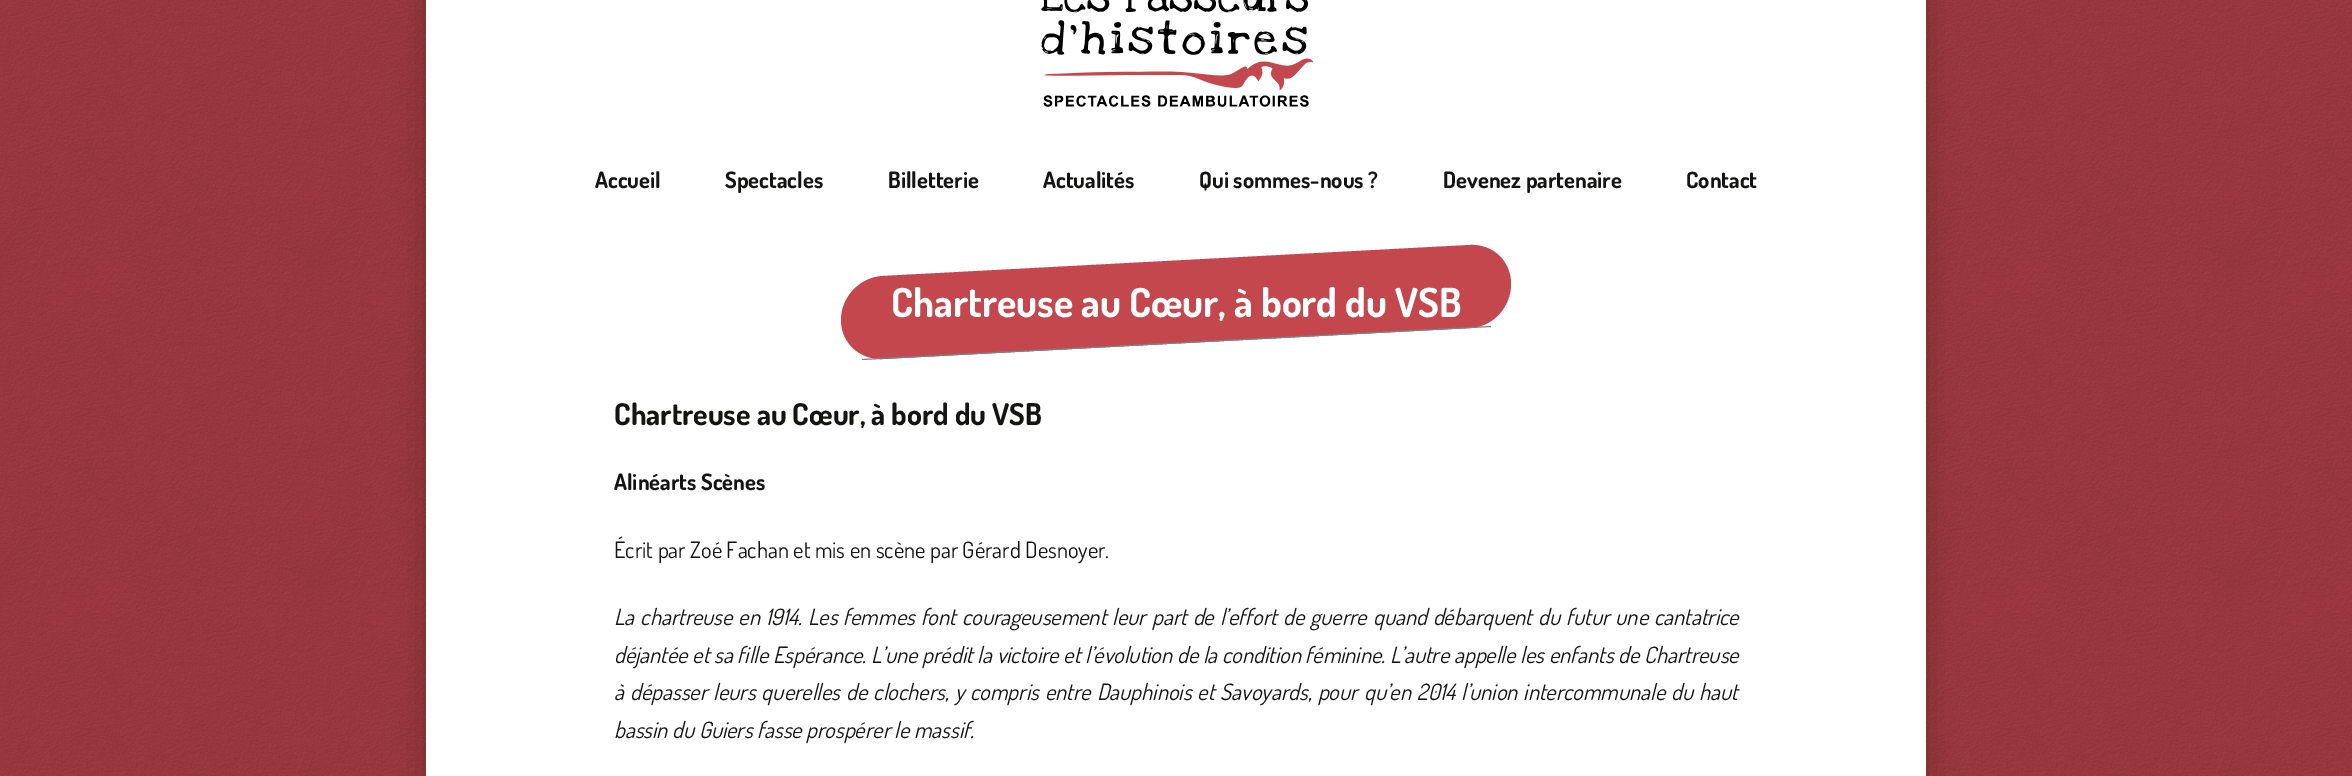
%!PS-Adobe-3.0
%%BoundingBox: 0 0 2352 776
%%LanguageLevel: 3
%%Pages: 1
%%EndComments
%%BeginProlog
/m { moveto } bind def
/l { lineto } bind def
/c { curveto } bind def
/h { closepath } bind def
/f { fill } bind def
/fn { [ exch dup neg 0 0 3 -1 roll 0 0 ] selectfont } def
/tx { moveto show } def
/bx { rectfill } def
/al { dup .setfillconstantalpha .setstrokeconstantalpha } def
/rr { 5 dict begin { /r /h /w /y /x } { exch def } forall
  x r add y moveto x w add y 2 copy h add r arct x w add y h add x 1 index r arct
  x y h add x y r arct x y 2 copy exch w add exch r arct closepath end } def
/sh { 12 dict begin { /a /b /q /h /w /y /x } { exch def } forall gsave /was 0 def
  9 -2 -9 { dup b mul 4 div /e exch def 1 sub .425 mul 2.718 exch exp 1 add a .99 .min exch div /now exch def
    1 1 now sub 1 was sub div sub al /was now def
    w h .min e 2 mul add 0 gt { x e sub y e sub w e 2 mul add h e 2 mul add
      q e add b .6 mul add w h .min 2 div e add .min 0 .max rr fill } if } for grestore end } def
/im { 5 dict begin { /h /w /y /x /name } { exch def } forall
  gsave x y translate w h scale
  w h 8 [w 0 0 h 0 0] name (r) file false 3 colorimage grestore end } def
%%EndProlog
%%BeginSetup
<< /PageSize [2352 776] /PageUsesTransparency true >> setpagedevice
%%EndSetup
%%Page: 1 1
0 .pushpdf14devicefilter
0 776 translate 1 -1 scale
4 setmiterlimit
0.627 0.227 0.251 setrgbcolor
0 0 2352 776 bx
(image0.raw) 0 0 2352 776 im
0 setgray
426 -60 1500 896 15 15 0.2 sh
1 setgray
426 0 1500 776 bx
(image1.raw) 1041 0 273 107 im
/Dosis-Bold 22.5 fn
0.078 0.078 0.071 setrgbcolor
(Accueil) 595 188 tx
(Spectacles) 725 188 tx
(Billetterie) 888 188 tx
(Actualités) 1043 188 tx
(Qui sommes-nous ?) 1199 188 tx
(Devenez partenaire) 1443 188 tx
(Contact) 1686 188 tx
0.769 0.278 0.306 setrgbcolor
883 276 m 1470 245 l 1493 244 1511 261 1511 284 c 1511 307 1493 327 1470 328 c 883 359 l 860 360 841 343 841 320 c 841 297 860 277 883 276 c h f
0.502 setgray
862 359 m 1491 326 l 1491 327 l 862 360 l h f
/Dosis-Bold 40 fn
1 setgray
(Chartreuse au Cœur, à bord du VSB) 891 317 tx
/Dosis-Bold 30 fn
0.078 0.078 0.071 setrgbcolor
(Chartreuse au Cœur, à bord du VSB) 614 425 tx
/Dosis-Bold 22.5 fn
(Alinéarts Scènes) 614 490 tx
/Dosis-Regular 22.5 fn
(Écrit par Zoé Fachan et mis en scène par Gérard Desnoyer.) 614 558 tx
/Dosis-Italic 22.5 fn
614 625 m 1.5 0 32 (La chartreuse en 1914. Les femmes font courageusement leur part de l’effort de guerre quand débarquent du futur une cantatrice) widthshow
614 663 m 0.25 0 32 (déjantée et sa fille Espérance. L’une prédit la victoire et l’évolution de la condition féminine. L’autre appelle les enfants de Chartreuse) widthshow
614 700 m 1.6 0 32 (à dépasser leurs querelles de clochers, y compris entre Dauphinois et Savoyards, pour qu’en 2014 l’union intercommunale du haut) widthshow
(bassin du Guiers fasse prospérer le massif.) 614 738 tx
.poppdf14devicefilter showpage
%%EOF
